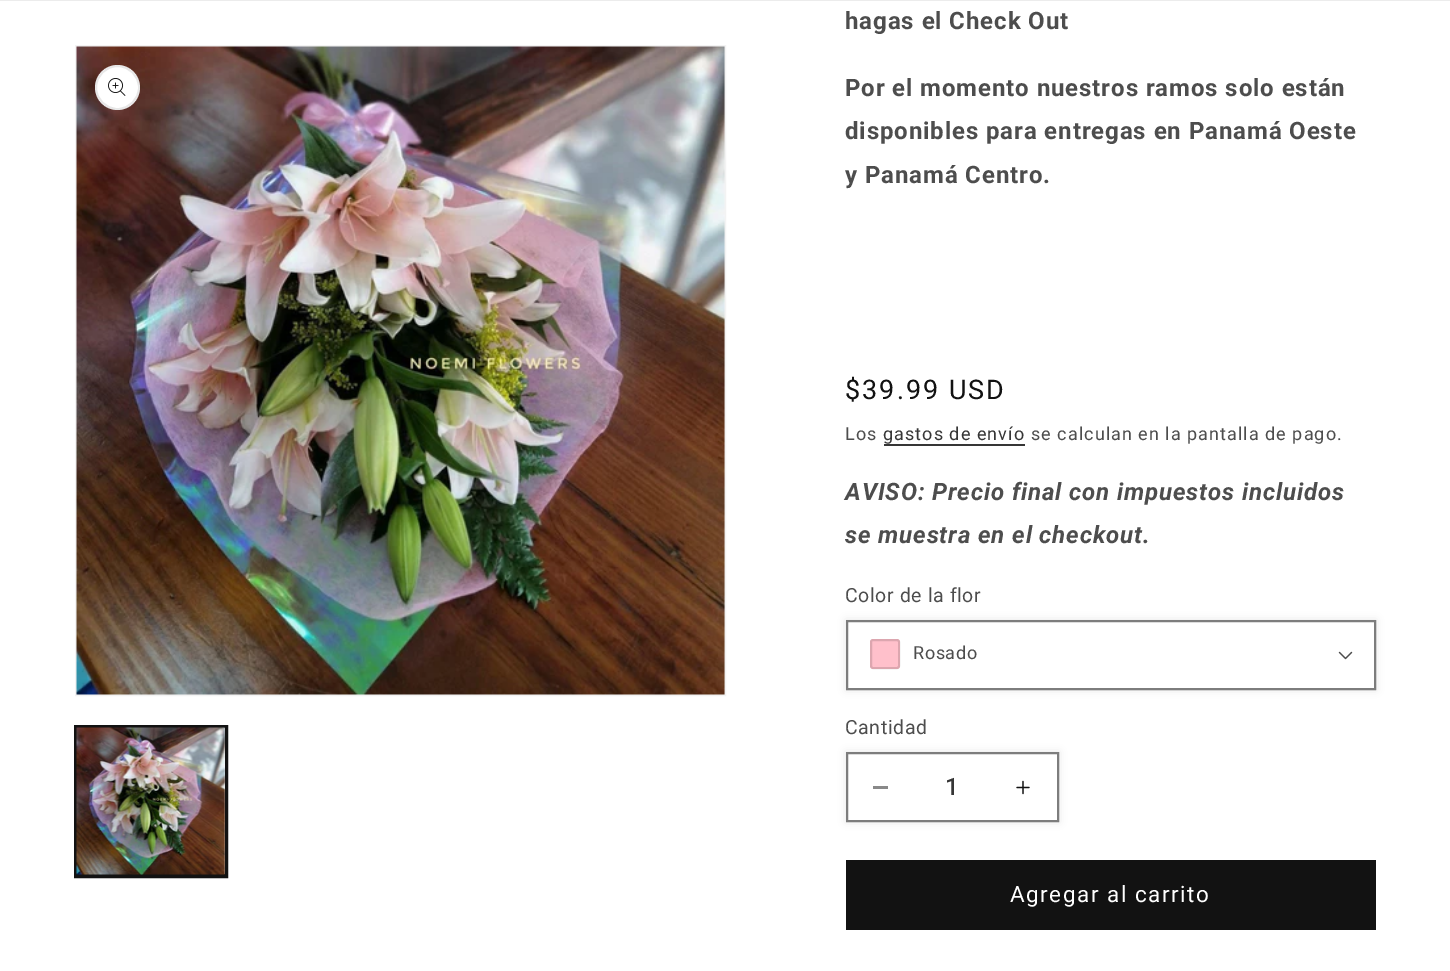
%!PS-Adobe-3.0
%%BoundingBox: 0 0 1450 971
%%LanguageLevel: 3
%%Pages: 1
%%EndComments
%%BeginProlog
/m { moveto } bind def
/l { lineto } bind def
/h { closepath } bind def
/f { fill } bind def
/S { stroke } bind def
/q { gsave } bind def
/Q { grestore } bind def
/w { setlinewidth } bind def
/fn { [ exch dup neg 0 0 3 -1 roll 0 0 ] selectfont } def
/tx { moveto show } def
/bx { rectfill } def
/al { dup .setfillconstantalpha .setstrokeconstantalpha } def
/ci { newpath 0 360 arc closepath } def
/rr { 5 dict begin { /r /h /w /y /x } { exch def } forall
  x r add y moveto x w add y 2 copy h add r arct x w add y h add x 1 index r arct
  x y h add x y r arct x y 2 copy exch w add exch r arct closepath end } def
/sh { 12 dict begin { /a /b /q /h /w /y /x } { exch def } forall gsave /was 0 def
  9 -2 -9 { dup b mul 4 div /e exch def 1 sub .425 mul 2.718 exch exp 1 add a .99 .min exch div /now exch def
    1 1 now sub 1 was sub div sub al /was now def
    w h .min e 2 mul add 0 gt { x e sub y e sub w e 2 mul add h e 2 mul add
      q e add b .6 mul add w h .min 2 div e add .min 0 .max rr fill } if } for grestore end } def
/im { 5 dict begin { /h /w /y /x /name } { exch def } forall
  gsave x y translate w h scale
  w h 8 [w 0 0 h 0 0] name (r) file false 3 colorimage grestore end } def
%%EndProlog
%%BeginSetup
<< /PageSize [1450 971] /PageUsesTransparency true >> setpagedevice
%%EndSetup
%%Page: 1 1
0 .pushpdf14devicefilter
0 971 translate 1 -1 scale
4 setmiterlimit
1 setgray
0 0 1450 971 bx
0.925 setgray
0 0 1450 1 bx
0.953 setgray
2 w
76 46 649 649 rectstroke
(image0.raw) 76 46 649 649 im
1 setgray
117.5 87.5 22.5 ci f
0.1 al
0.071 setgray
117.5 87.5 21.5 ci S
1 al
(image1.raw) 108 78 18 18 im
75 726 152 151 rectstroke
76 727 150 148 rectstroke
(image2.raw) 76 727 149 148 im
/Roboto-Bold 24 fn
0.302 setgray
845 29 m 0.9 0 (hagas el Check Out) ashow
845 96 m 0.9 0 (Por el momento nuestros ramos solo están) ashow
845 139 m 0.9 0 (disponibles para entregas en Panamá Oeste) ashow
845 183 m 0.9 0 (y Panamá Centro.) ashow
/Roboto-Regular 27 fn
0.071 setgray
845 399 m 2 0 ($39.99 USD) ashow
/Roboto-Regular 18 fn
0.302 setgray
845 440 m 1.05 0 (Los) ashow
0.212 setgray
883 440 m 1.05 0 (gastos de envío) ashow
884 444 141 2 bx
0.302 setgray
1031 440 m 1.05 0 (se calculan en la pantalla de pago.) ashow
/Roboto-BoldItalic 24 fn
845 500 m 0.9 0 (AVISO: Precio final con impuestos incluidos) ashow
845 543 m 0.9 0 (se muestra en el checkout.) ashow
/Roboto-Regular 19.5 fn
845 602 m 0.6 0 (Color de la flor) ashow
q
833 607 m 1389 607 l 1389 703 l 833 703 l h 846 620 m 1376 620 l 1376 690 l 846 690 l h eoclip newpath
0.071 setgray
846 620 530 70 0 4 0.1 sh
Q
1 0.753 0.796 setrgbcolor
870 639 30 30 3 rr f
0.15 al
0.071 setgray
871 640 28 28 2 rr S
1 al
(image3.raw) 1338 651 15 9 im
0.55 al
847 621 528 68 rectstroke
/Roboto-Regular 18 fn
1 al
0.302 setgray
913 659 m 0.6 0 (Rosado) ashow
/Roboto-Regular 19.5 fn
845 734 m 0.6 0 (Cantidad) ashow
q
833 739 m 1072 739 l 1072 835 l 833 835 l h 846 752 m 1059 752 l 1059 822 l 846 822 l h eoclip newpath
0.071 setgray
846 752 213 70 0 4 0.1 sh
Q
0.537 setgray
873 786 15 3 bx
(image4.raw) 1016 780 14 15 im
0.49 setgray
847 753 211 68 rectstroke
/Roboto-Medium 24 fn
0.212 setgray
(1) 945 795 tx
0.071 setgray
846 860 530 70 bx
/Roboto-Regular 22.5 fn
1 setgray
1010 902 m 1.5 0 (Agregar al carrito) ashow
.poppdf14devicefilter showpage
%%EOF
